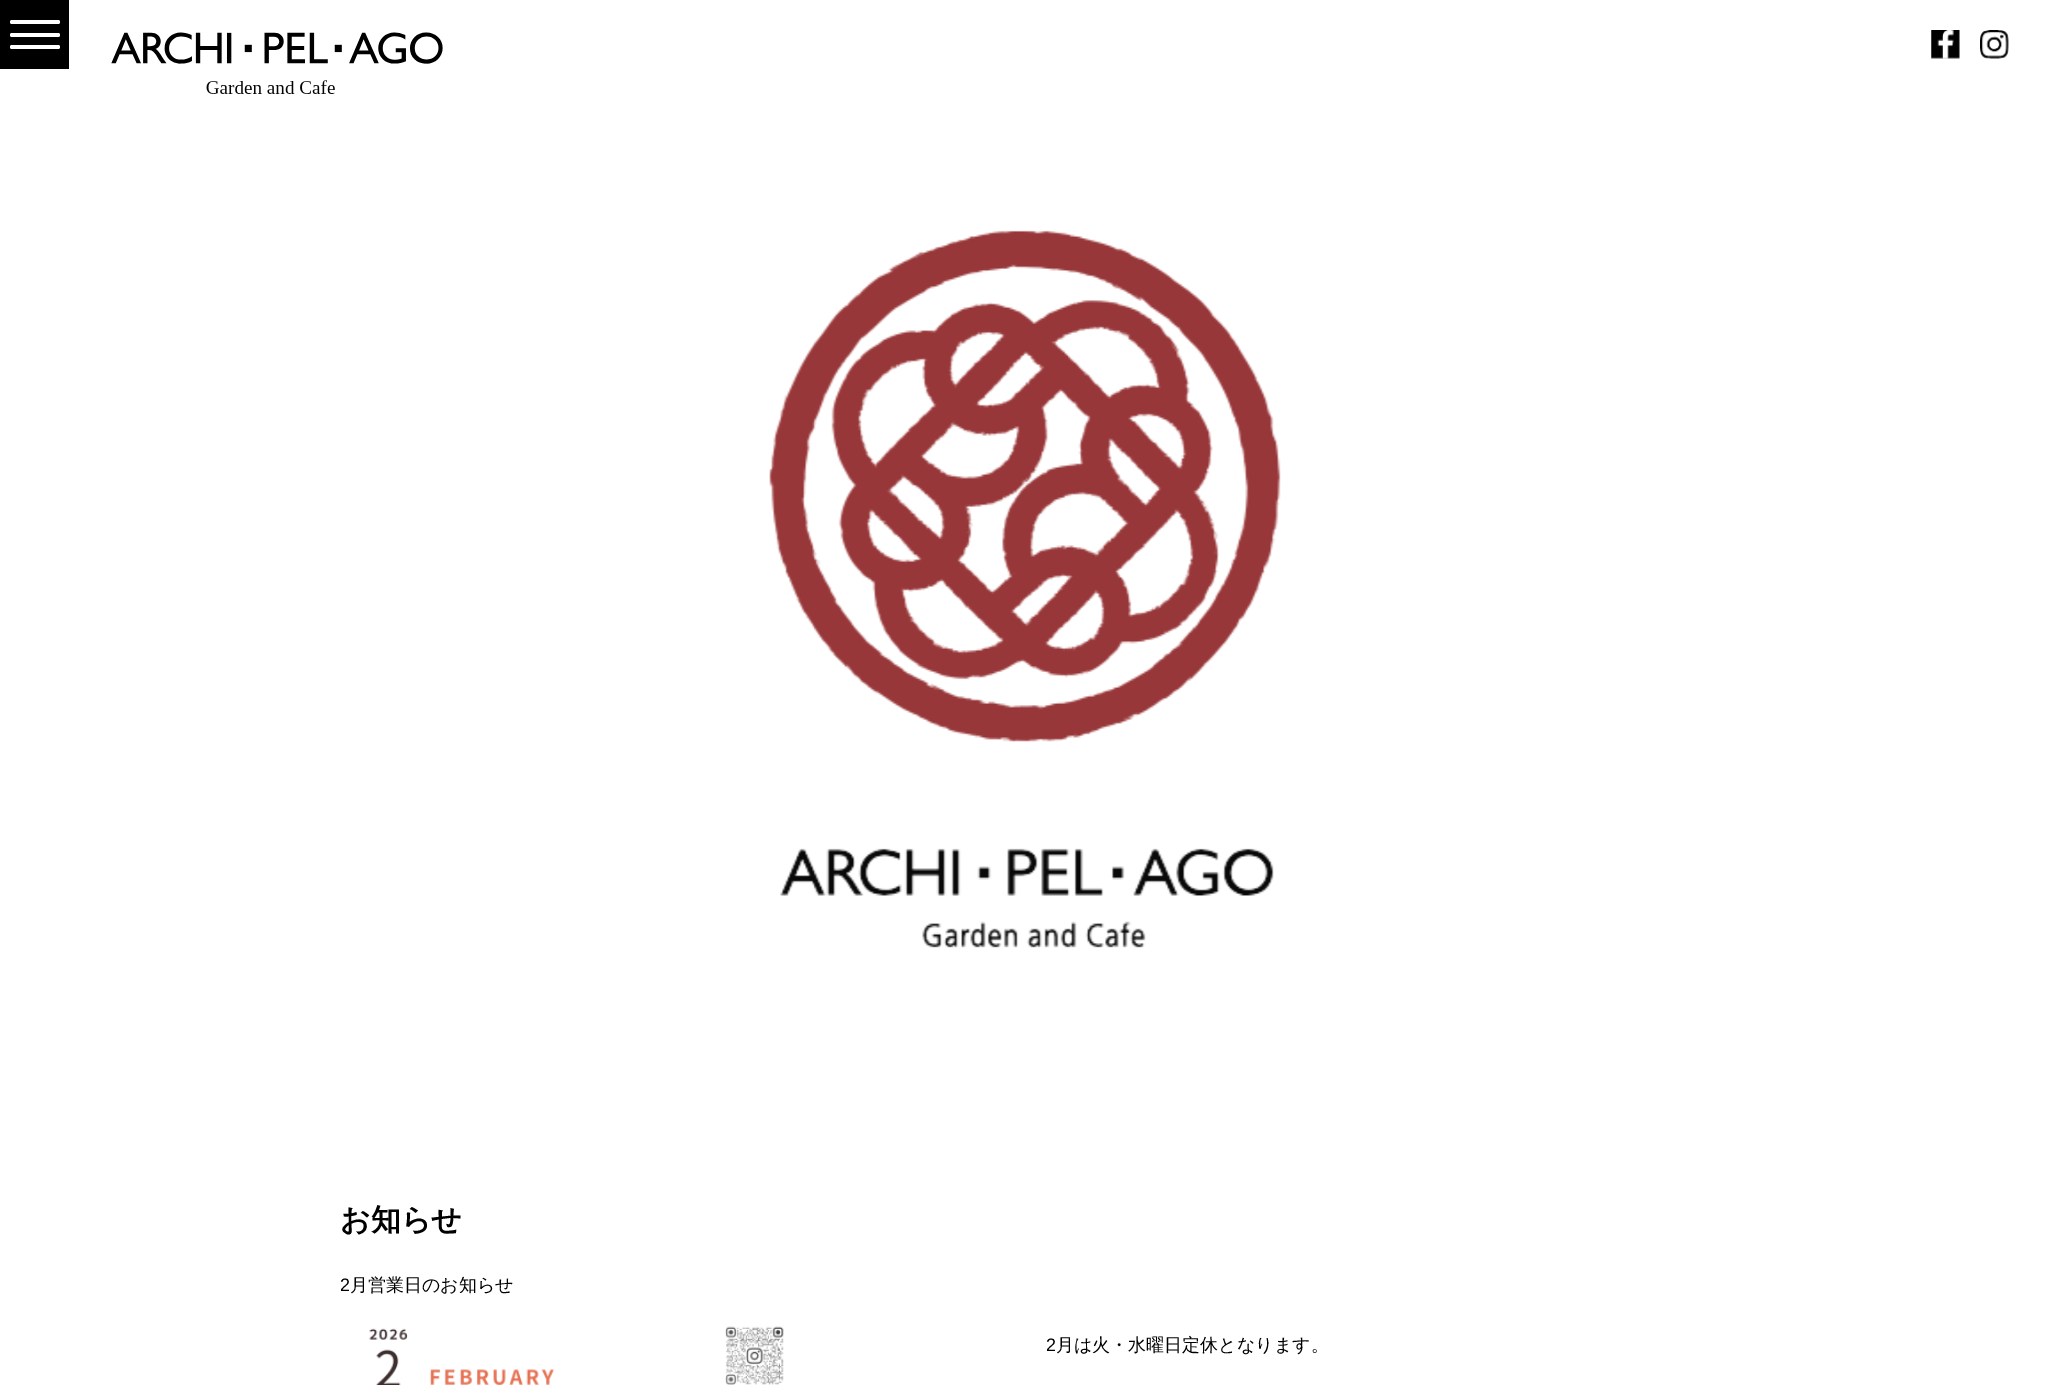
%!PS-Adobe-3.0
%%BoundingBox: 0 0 2055 1385
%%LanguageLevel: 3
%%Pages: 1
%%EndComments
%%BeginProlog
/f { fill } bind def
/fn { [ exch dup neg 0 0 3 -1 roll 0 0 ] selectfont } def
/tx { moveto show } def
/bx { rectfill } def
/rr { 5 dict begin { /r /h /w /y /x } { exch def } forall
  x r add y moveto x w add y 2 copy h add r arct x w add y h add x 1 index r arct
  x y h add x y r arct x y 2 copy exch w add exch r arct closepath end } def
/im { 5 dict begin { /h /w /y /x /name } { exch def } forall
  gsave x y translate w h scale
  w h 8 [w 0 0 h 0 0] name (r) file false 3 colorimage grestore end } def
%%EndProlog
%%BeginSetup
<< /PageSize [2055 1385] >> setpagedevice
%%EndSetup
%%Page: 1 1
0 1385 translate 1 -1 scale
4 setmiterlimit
1 setgray
0 0 2055 1385 bx
0 setgray
0 0 69 69 bx
1 setgray
10 33 50 4 2 rr f
10 20 50 4 2 rr f
10 45 50 4 2 rr f
(image0.raw) 111 32 332 62 im
(image1.raw) 1931 30 29 29 im
(image2.raw) 1980 30 29 29 im
(image3.raw) 769 230 512 718 im
/WenQuanYiZenHei-Bold 30 fn
0 setgray
(お知らせ) 340 1230 tx
/LiberationSans-Regular 18 fn
(2) 340 1291 tx
/WenQuanYiZenHei-Medium 18 fn
(月営業日のお知らせ) 350 1291 tx
(image4.raw) 369 1326 415 59 im
/LiberationSans-Regular 18 fn
(2) 1046 1351 tx
/WenQuanYiZenHei-Medium 18 fn
(月は火・水曜日定休となります。) 1056 1351 tx
showpage
%%EOF
